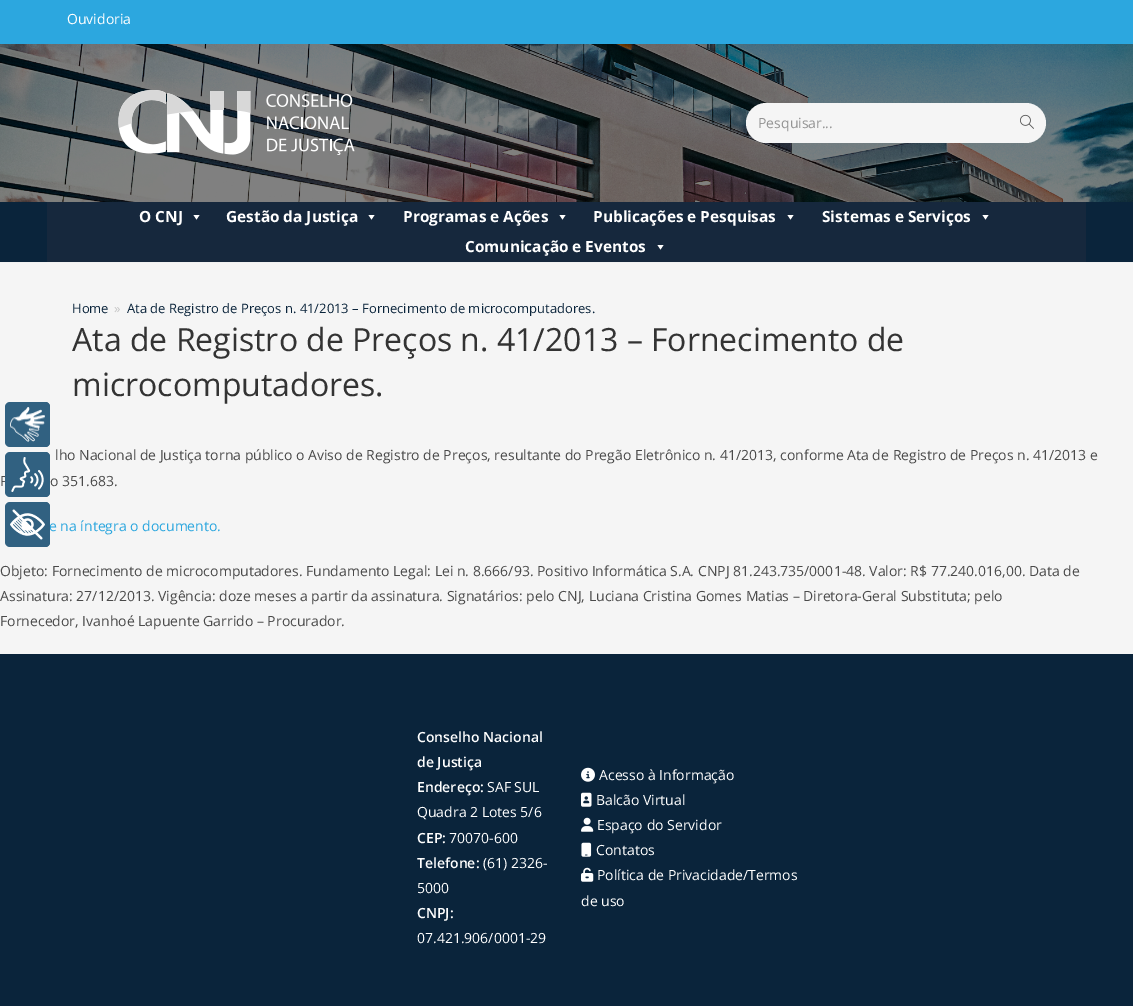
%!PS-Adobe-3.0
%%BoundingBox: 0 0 1133 1006
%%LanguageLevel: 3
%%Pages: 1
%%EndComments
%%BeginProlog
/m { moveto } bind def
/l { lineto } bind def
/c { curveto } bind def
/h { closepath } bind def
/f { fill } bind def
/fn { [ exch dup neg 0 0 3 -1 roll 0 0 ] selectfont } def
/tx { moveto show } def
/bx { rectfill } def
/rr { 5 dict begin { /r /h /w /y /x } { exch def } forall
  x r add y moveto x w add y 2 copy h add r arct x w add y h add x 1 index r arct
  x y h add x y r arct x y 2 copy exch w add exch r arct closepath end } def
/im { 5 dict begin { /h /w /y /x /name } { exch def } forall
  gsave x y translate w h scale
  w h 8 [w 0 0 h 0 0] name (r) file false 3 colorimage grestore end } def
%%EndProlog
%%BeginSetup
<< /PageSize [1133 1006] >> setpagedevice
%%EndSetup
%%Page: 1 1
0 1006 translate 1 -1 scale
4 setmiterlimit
0.961 setgray
0 0 1133 1006 bx
0.173 0.655 0.875 setrgbcolor
0 0 1133 44 bx
/OpenSans-Regular 14 fn
1 setgray
(Ouvidoria) 67 24 tx
(image0.raw) 0 44 1133 158 im
0.945 setgray
0 262 1133 1 bx
(image1.raw) 118 90 237 65 im
0.961 setgray
746 103 300 40 20 rr f
0.58 setgray
(Pesquisar...) 758 128 tx
(image2.raw) 1020 114 14 15 im
0.039 0.141 0.231 setrgbcolor
0 202 1133 60 bx
0.086 0.157 0.239 setrgbcolor
47 202 1039 60 bx
/OpenSans-Bold 15.4 fn
1 setgray
(O CNJ) 139 222 tx
199.5 215 m 196.5 219.5 l 193.5 215 l h f
(Gestão da Justiça) 226 222 tx
374.5 215 m 371.5 219.5 l 368.5 215 l h f
(Programas e Ações) 403 222 tx
565.5 215 m 562.5 219.5 l 559.5 215 l h f
(Publicações e Pesquisas) 593 222 tx
793.5 215 m 790.5 219.5 l 787.5 215 l h f
(Sistemas e Serviços) 822 222 tx
988.5 215 m 985.5 219.5 l 982.5 215 l h f
(Comunicação e Eventos) 465 252 tx
663.5 245 m 660.5 249.5 l 657.5 245 l h f
/OpenSans-Regular 13 fn
0.039 0.141 0.231 setrgbcolor
(Home) 72 313 tx
0.776 setgray
(») 114 313 tx
0.039 0.141 0.231 setrgbcolor
(Ata de Registro de Preços n. 41/2013 – Fornecimento de microcomputadores.) 127 313 tx
/OpenSans-Regular 32 fn
0.2 setgray
(Ata de Registro de Preços n. 41/2013 – Fornecimento de) 72 351 tx
(microcomputadores.) 72 396 tx
/OpenSans-Regular 14 fn
0.29 setgray
(lho Nacional de Justiça torna público o Aviso de Registro de Preços, resultante do Pregão Eletrônico n. 41/2013, conforme Ata de Registro de Preços n. 41/2013 e) 55 460 tx
(P) 0 486 tx
(o 351.683.) 50 486 tx
0.173 0.655 0.875 setrgbcolor
(e na íntegra o documento.) 49 531 tx
0.29 setgray
(Objeto: Fornecimento de microcomputadores. Fundamento Legal: Lei n. 8.666/93. Positivo Informática S.A. CNPJ 81.243.735/0001-48. Valor: R$ 77.240.016,00. Data de) 0 576 tx
(Assinatura: 27/12/2013. Vigência: doze meses a partir da assinatura. Signatários: pelo CNJ, Luciana Cristina Gomes Matias – Diretora-Geral Substituta; pelo) 0 601 tx
(Fornecedor, Ivanhoé Lapuente Garrido – Procurador.) 0 626 tx
0.039 0.141 0.231 setrgbcolor
0 654 1133 352 bx
/OpenSans-SemiBold 14 fn
1 setgray
(Conselho Nacional) 417 742 tx
(de Justiça) 417 767 tx
(Endereço:) 417 792 tx
/OpenSans-Regular 14 fn
(SAF SUL) 487 792 tx
(Quadra 2 Lotes 5/6) 417 817 tx
/OpenSans-SemiBold 14 fn
(CEP:) 417 843 tx
/OpenSans-Regular 14 fn
(70070-600) 449 843 tx
/OpenSans-SemiBold 14 fn
(Telefone:) 417 868 tx
/OpenSans-Regular 14 fn
(\(61\) 2326-) 483 868 tx
(5000) 417 893 tx
/OpenSans-SemiBold 14 fn
(CNPJ:) 417 918 tx
/OpenSans-Regular 14 fn
(07.421.906/0001-29) 417 943 tx
(image3.raw) 581 767 14 15 im
(Acesso à Informação) 599 780 tx
(image4.raw) 581 792 11 15 im
(Balcão Virtual) 596 805 tx
(image5.raw) 581 817 13 15 im
(Espaço do Servidor) 597 830 tx
(image6.raw) 581 842 11 15 im
(Contatos) 596 855 tx
(image7.raw) 581 867 13 15 im
(Política de Privacidade/Termos) 597 880 tx
(de uso) 581 906 tx
0.192 0.38 0.506 setrgbcolor
5 402 45 45 5 rr f
(image8.raw) 10 407 35 35 im
45 402 m 48 402 50 404 50 407 c 50 442 l 50 445 48 447 45 447 c h f
5 452 45 45 5 rr f
(image9.raw) 11 457 33 35 im
45 452 m 48 452 50 454 50 457 c 50 492 l 50 495 48 497 45 497 c h f
5 502 45 45 5 rr f
(image10.raw) 10 509 35 31 im
45 502 m 48 502 50 504 50 507 c 50 542 l 50 545 48 547 45 547 c h f
showpage
%%EOF
